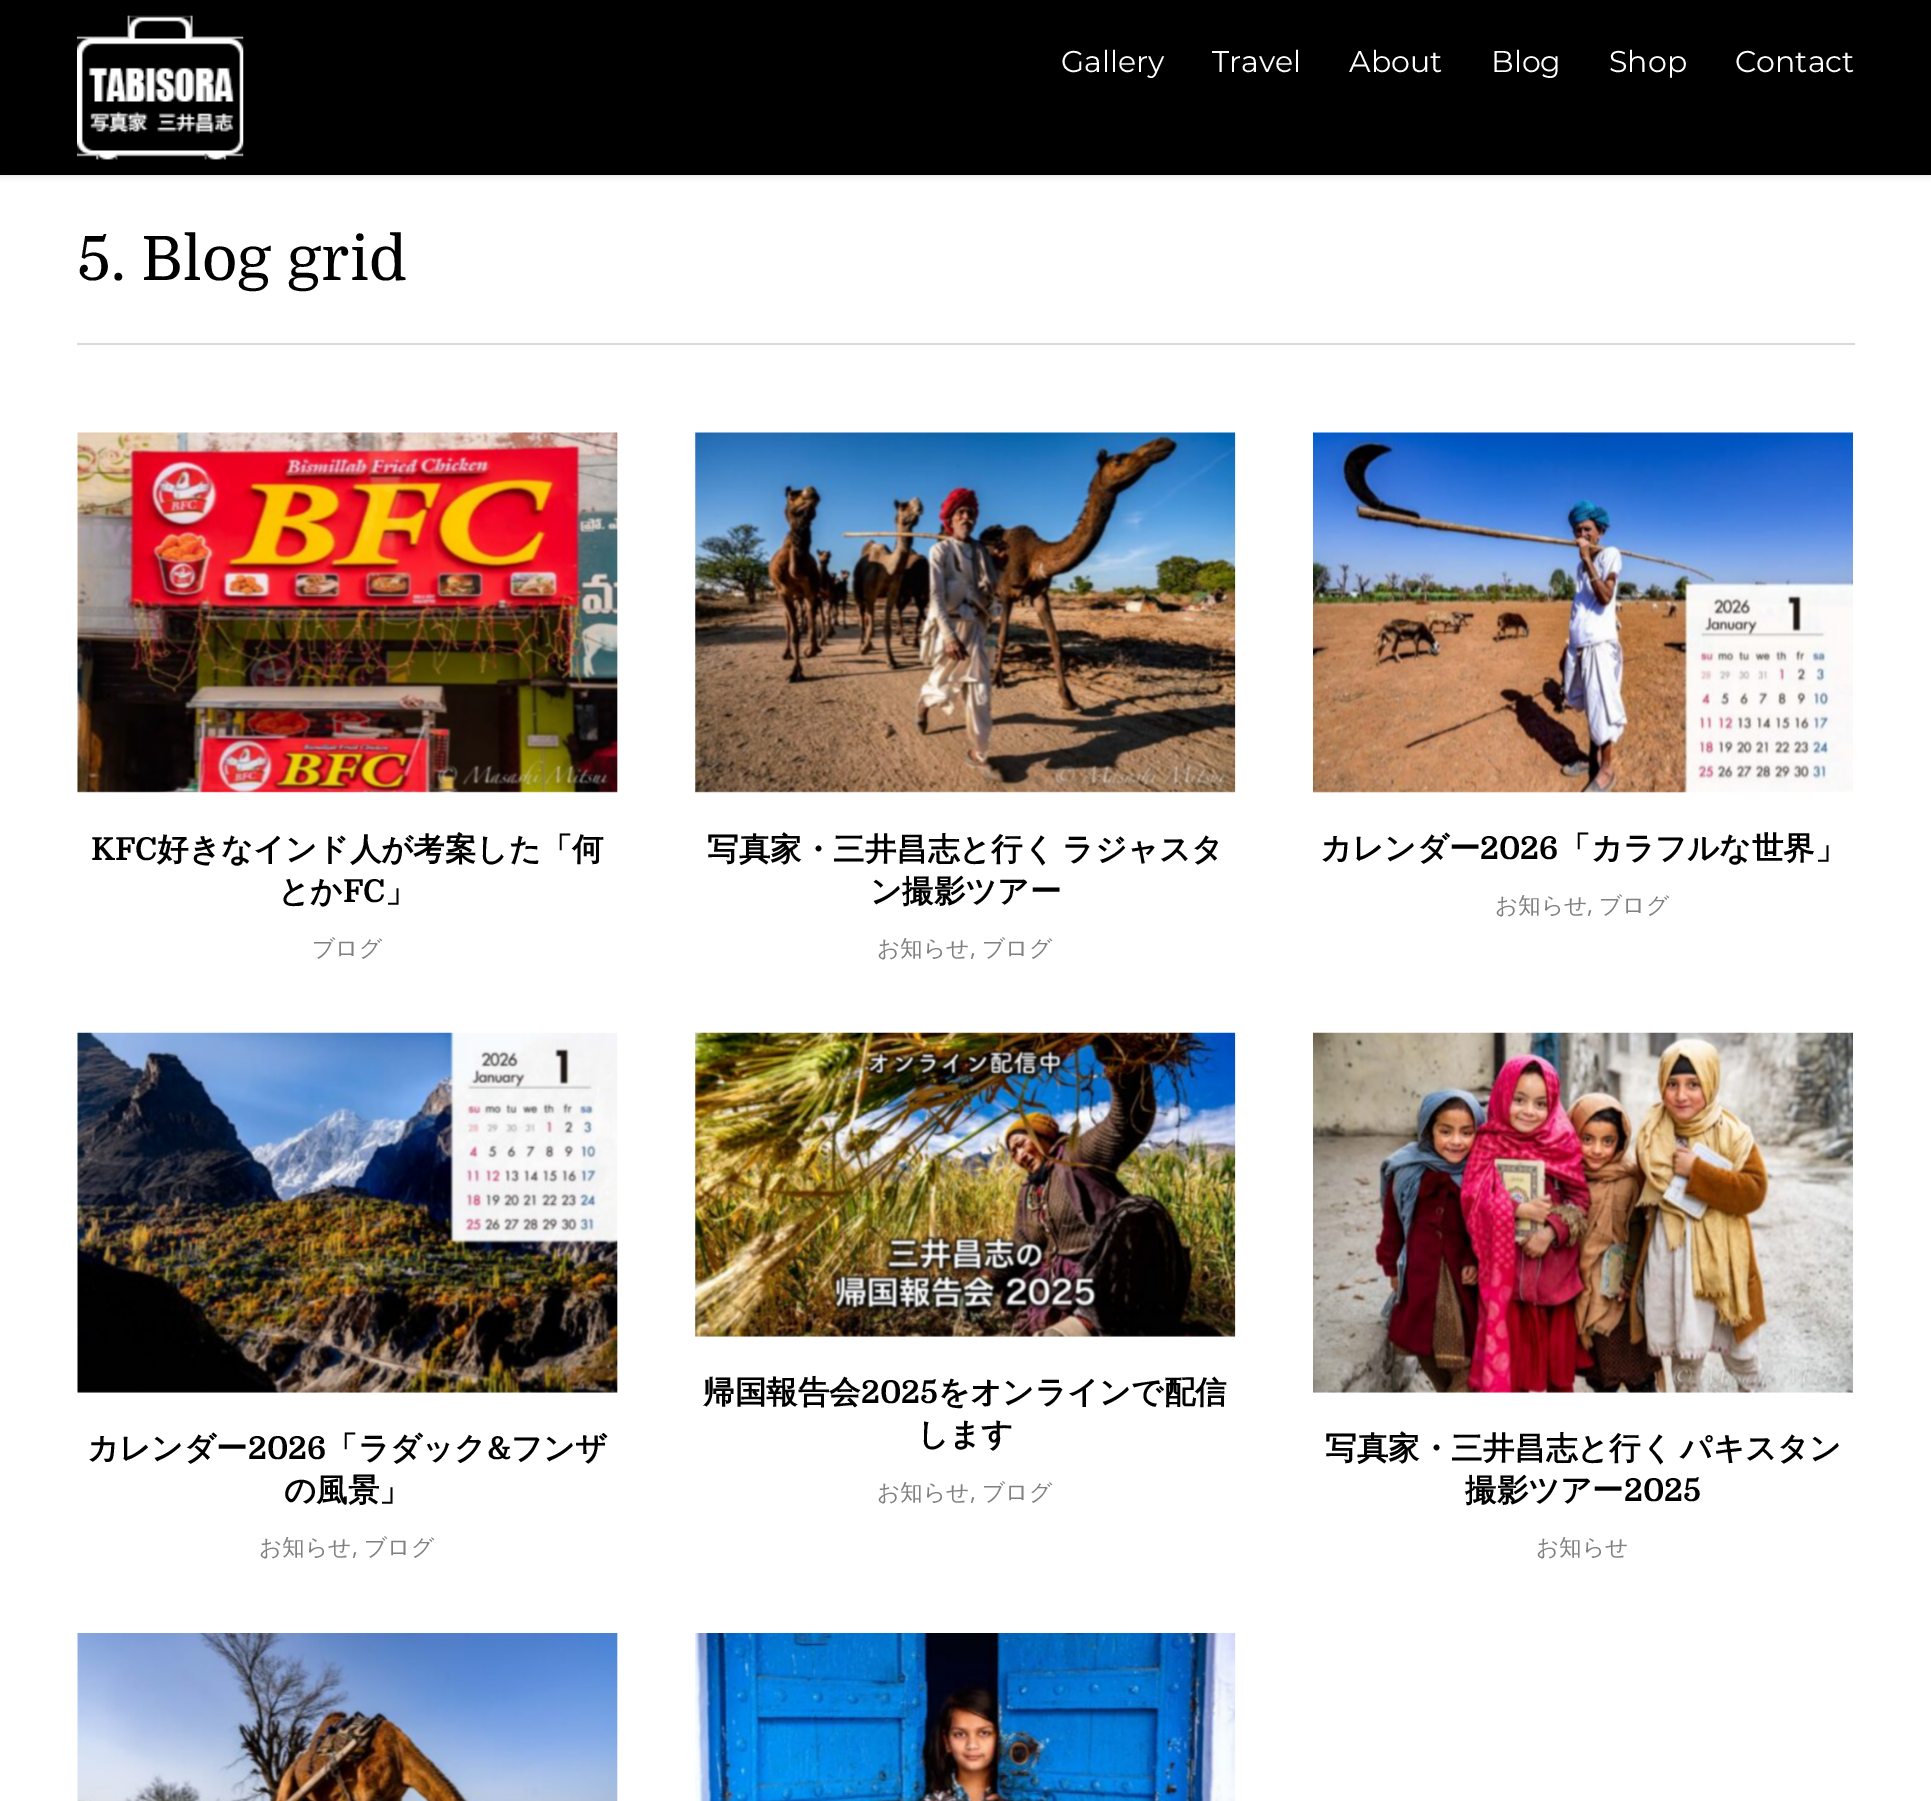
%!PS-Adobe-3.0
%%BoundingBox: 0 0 1931 1801
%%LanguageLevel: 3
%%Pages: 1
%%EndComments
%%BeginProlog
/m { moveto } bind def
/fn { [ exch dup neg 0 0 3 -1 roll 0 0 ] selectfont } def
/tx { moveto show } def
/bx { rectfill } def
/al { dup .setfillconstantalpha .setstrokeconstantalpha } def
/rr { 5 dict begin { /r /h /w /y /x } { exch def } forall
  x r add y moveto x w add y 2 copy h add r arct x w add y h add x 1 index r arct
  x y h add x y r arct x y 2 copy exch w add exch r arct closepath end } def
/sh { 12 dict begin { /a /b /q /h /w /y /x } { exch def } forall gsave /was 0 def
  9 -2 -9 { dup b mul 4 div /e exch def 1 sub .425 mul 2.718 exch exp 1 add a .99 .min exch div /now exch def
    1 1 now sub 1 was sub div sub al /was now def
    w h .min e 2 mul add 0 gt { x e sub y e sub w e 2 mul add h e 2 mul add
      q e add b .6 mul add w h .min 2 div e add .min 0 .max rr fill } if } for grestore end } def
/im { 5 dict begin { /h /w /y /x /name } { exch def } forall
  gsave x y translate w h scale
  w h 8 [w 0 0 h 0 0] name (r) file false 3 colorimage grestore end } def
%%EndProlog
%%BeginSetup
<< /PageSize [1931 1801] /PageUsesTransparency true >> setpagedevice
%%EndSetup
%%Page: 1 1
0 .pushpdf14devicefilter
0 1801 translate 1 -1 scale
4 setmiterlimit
1 setgray
0 0 1931 1801 bx
0 setgray
0 0 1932 175 0 3.5 0.15 sh
0 0 1931 175 bx
(image0.raw) 77 15 167 145 im
/Montserrat-Thin 30 fn
1 setgray
(Gallery) 1061 72 tx
(Travel) 1212 72 tx
(About) 1349 72 tx
(Blog) 1491 72 tx
(Shop) 1609 72 tx
(Contact) 1735 72 tx
0.851 setgray
77 343 1778 2 bx
/Domine-Regular 61.25 fn
0 setgray
(5. Blog grid) 77 280 tx
(image1.raw) 77 432 541 361 im
/Domine-Bold 31.5 fn
(KFC) 91 860 tx
/WenQuanYiZenHei-Bold 31.5 fn
(好きなインド人が考案した「何) 157 860 tx
(とか) 278 902 tx
/Domine-Bold 31.5 fn
(FC) 343 902 tx
/WenQuanYiZenHei-Bold 31.5 fn
(」) 385 902 tx
/WenQuanYiZenHei-Medium 22.75 fn
0.502 setgray
(ブログ) 312 956 tx
(image2.raw) 695 432 541 361 im
/WenQuanYiZenHei-Bold 31.5 fn
0 setgray
707 860 m -2 0 32 (写真家・三井昌志と行く ラジャスタ) widthshow
(ン撮影ツアー) 870 902 tx
/WenQuanYiZenHei-Medium 22.75 fn
0.502 setgray
(お知らせ) 877 956 tx
/OpenSans-Regular 22.75 fn
(,) 970 956 tx
/WenQuanYiZenHei-Medium 22.75 fn
(ブログ) 982 956 tx
(image3.raw) 1313 432 540 361 im
/WenQuanYiZenHei-Bold 31.5 fn
0 setgray
(カレンダー) 1320 859 tx
/Domine-Bold 31.5 fn
(2026) 1480 859 tx
/WenQuanYiZenHei-Bold 31.5 fn
(「カラフルな世界」) 1559 859 tx
/WenQuanYiZenHei-Medium 22.75 fn
0.502 setgray
(お知らせ) 1495 913 tx
/OpenSans-Regular 22.75 fn
(,) 1587 913 tx
/WenQuanYiZenHei-Medium 22.75 fn
(ブログ) 1599 913 tx
(image4.raw) 77 1032 541 361 im
/WenQuanYiZenHei-Bold 31.5 fn
0 setgray
(カレンダー) 87 1459 tx
/Domine-Bold 31.5 fn
(2026) 248 1459 tx
/WenQuanYiZenHei-Bold 31.5 fn
(「ラダック) 326 1459 tx
/Domine-Bold 31.5 fn
(&) 487 1459 tx
/WenQuanYiZenHei-Bold 31.5 fn
(フンザ) 511 1459 tx
(の風景」) 284 1501 tx
/WenQuanYiZenHei-Medium 22.75 fn
0.502 setgray
(お知らせ) 259 1555 tx
/OpenSans-Regular 22.75 fn
(,) 352 1555 tx
/WenQuanYiZenHei-Medium 22.75 fn
(ブログ) 364 1555 tx
(image5.raw) 695 1032 541 305 im
/WenQuanYiZenHei-Bold 31.5 fn
0 setgray
(帰国報告会) 703 1403 tx
/Domine-Bold 31.5 fn
(2025) 861 1403 tx
/WenQuanYiZenHei-Bold 31.5 fn
(をオンラインで配信) 938 1403 tx
(します) 917 1445 tx
/WenQuanYiZenHei-Medium 22.75 fn
0.502 setgray
(お知らせ) 877 1500 tx
/OpenSans-Regular 22.75 fn
(,) 970 1500 tx
/WenQuanYiZenHei-Medium 22.75 fn
(ブログ) 982 1500 tx
(image6.raw) 1313 1032 540 361 im
/WenQuanYiZenHei-Bold 31.5 fn
0 setgray
1325 1459 m -2 0 32 (写真家・三井昌志と行く パキスタン) widthshow
(撮影ツアー) 1465 1501 tx
/Domine-Bold 31.5 fn
(2025) 1624 1501 tx
/WenQuanYiZenHei-Medium 22.75 fn
0.502 setgray
(お知らせ) 1536 1555 tx
(image7.raw) 77 1633 541 168 im
(image8.raw) 695 1633 541 168 im
.poppdf14devicefilter showpage
%%EOF
